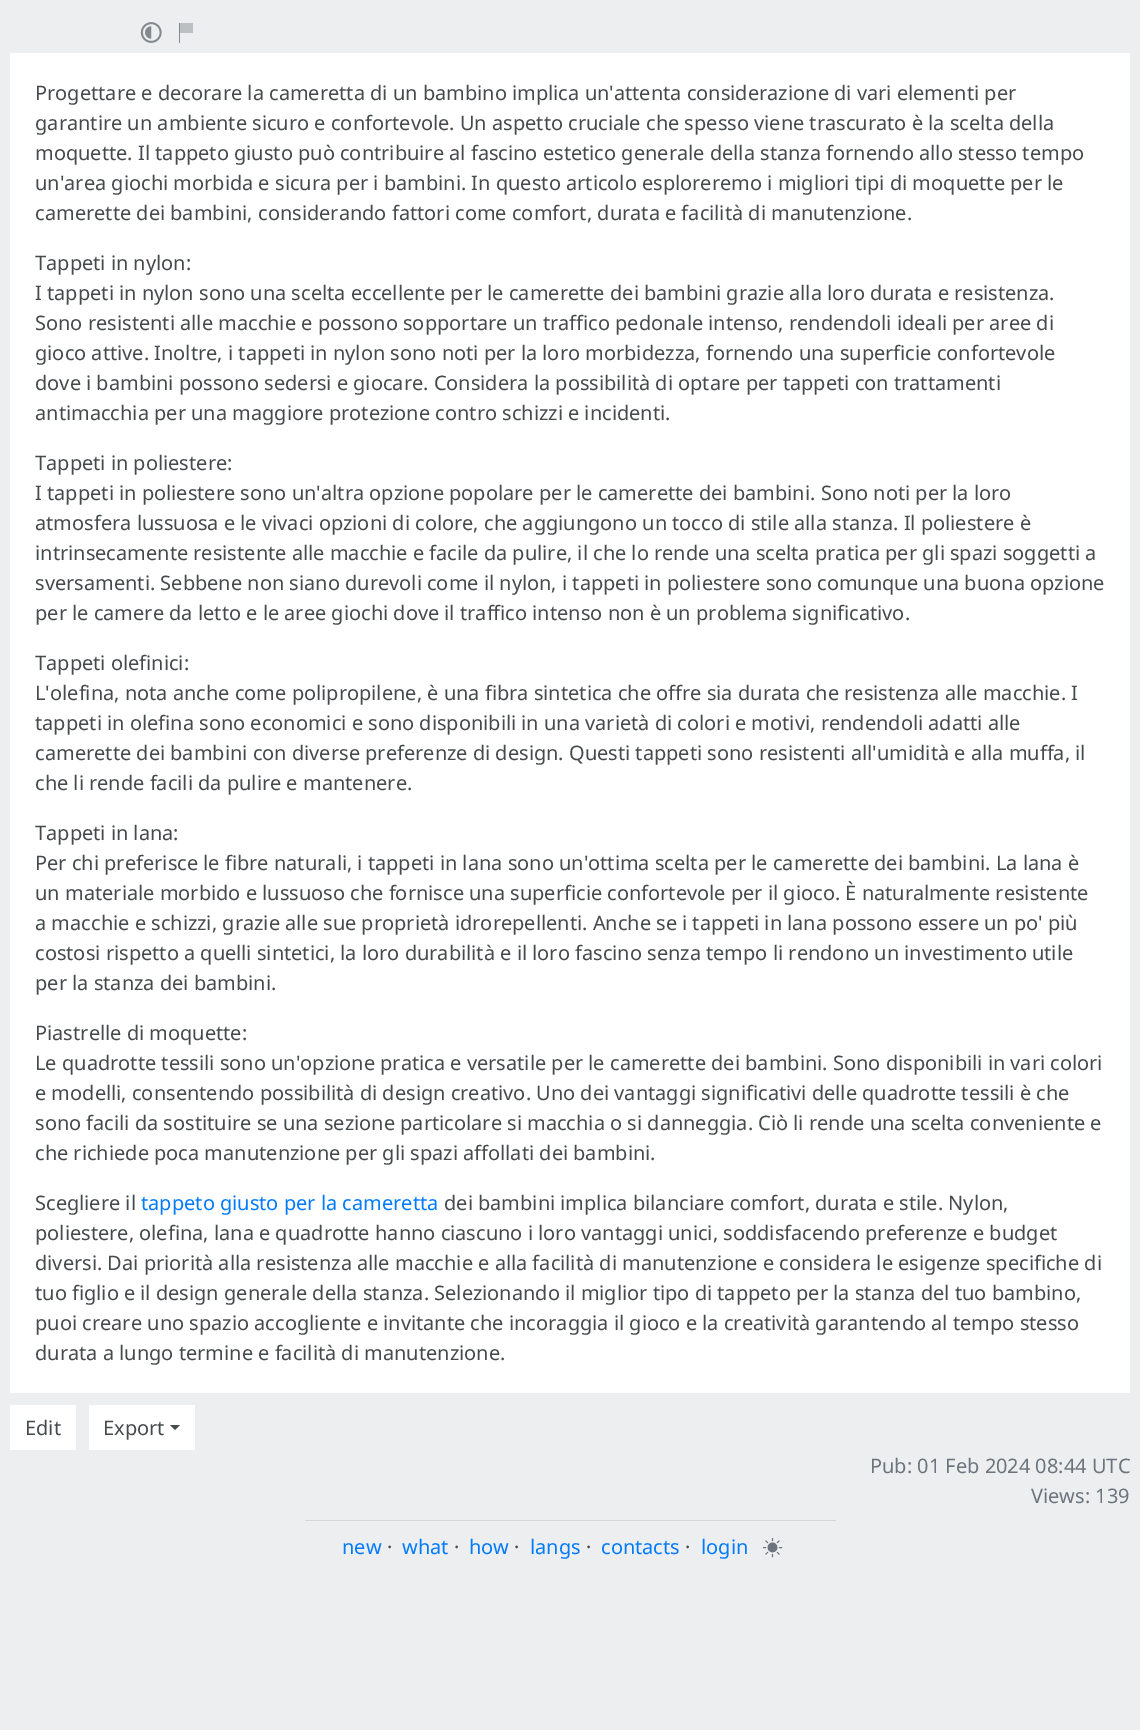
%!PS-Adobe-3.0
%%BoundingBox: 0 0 1140 1730
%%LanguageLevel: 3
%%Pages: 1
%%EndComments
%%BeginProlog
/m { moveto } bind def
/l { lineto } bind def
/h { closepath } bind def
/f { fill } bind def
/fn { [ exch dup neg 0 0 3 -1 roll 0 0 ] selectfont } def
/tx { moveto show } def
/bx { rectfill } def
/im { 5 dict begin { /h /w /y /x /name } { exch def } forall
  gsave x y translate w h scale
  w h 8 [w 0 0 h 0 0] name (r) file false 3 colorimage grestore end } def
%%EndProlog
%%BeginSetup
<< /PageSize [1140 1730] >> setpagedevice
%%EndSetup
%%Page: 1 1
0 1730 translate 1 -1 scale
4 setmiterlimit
0.929 0.933 0.941 setrgbcolor
0 0 1140 1730 bx
(image0.raw) 140 22 22 21 im
0.514 0.537 0.557 setrgbcolor
179 23 1 20 bx
0.741 0.753 0.761 setrgbcolor
180 23 13 10 bx
1 setgray
10 53 1120 1340 bx
/NotoSans-Regular 20 fn
0.275 0.29 0.298 setrgbcolor
(Progettare e decorare la cameretta di un bambino implica un'attenta considerazione di vari elementi per) 35 100 tx
(garantire un ambiente sicuro e confortevole. Un aspetto cruciale che spesso viene trascurato è la scelta della) 35 130 tx
(moquette. Il tappeto giusto può contribuire al fascino estetico generale della stanza fornendo allo stesso tempo) 35 160 tx
(un'area giochi morbida e sicura per i bambini. In questo articolo esploreremo i migliori tipi di moquette per le) 35 190 tx
(camerette dei bambini, considerando fattori come comfort, durata e facilità di manutenzione.) 35 220 tx
(Tappeti in nylon:) 35 270 tx
(I tappeti in nylon sono una scelta eccellente per le camerette dei bambini grazie alla loro durata e resistenza.) 35 300 tx
(Sono resistenti alle macchie e possono sopportare un traffico pedonale intenso, rendendoli ideali per aree di) 35 330 tx
(gioco attive. Inoltre, i tappeti in nylon sono noti per la loro morbidezza, fornendo una superficie confortevole) 35 360 tx
(dove i bambini possono sedersi e giocare. Considera la possibilità di optare per tappeti con trattamenti) 35 390 tx
(antimacchia per una maggiore protezione contro schizzi e incidenti.) 35 420 tx
(Tappeti in poliestere:) 35 470 tx
(I tappeti in poliestere sono un'altra opzione popolare per le camerette dei bambini. Sono noti per la loro) 35 500 tx
(atmosfera lussuosa e le vivaci opzioni di colore, che aggiungono un tocco di stile alla stanza. Il poliestere è) 35 530 tx
(intrinsecamente resistente alle macchie e facile da pulire, il che lo rende una scelta pratica per gli spazi soggetti a) 35 560 tx
(sversamenti. Sebbene non siano durevoli come il nylon, i tappeti in poliestere sono comunque una buona opzione) 35 590 tx
(per le camere da letto e le aree giochi dove il traffico intenso non è un problema significativo.) 35 620 tx
(Tappeti olefinici:) 35 670 tx
(L'olefina, nota anche come polipropilene, è una fibra sintetica che offre sia durata che resistenza alle macchie. I) 35 700 tx
(tappeti in olefina sono economici e sono disponibili in una varietà di colori e motivi, rendendoli adatti alle) 35 730 tx
(camerette dei bambini con diverse preferenze di design. Questi tappeti sono resistenti all'umidità e alla muffa, il) 35 760 tx
(che li rende facili da pulire e mantenere.) 35 790 tx
(Tappeti in lana:) 35 840 tx
(Per chi preferisce le fibre naturali, i tappeti in lana sono un'ottima scelta per le camerette dei bambini. La lana è) 35 870 tx
(un materiale morbido e lussuoso che fornisce una superficie confortevole per il gioco. È naturalmente resistente) 35 900 tx
(a macchie e schizzi, grazie alle sue proprietà idrorepellenti. Anche se i tappeti in lana possono essere un po' più) 35 930 tx
(costosi rispetto a quelli sintetici, la loro durabilità e il loro fascino senza tempo li rendono un investimento utile) 35 960 tx
(per la stanza dei bambini.) 35 990 tx
(Piastrelle di moquette:) 35 1040 tx
(Le quadrotte tessili sono un'opzione pratica e versatile per le camerette dei bambini. Sono disponibili in vari colori) 35 1070 tx
(e modelli, consentendo possibilità di design creativo. Uno dei vantaggi significativi delle quadrotte tessili è che) 35 1100 tx
(sono facili da sostituire se una sezione particolare si macchia o si danneggia. Ciò li rende una scelta conveniente e) 35 1130 tx
(che richiede poca manutenzione per gli spazi affollati dei bambini.) 35 1160 tx
(Scegliere il) 35 1210 tx
0 0.482 1 setrgbcolor
(tappeto giusto per la cameretta) 141 1210 tx
0.275 0.29 0.298 setrgbcolor
(dei bambini implica bilanciare comfort, durata e stile. Nylon,) 444 1210 tx
(poliestere, olefina, lana e quadrotte hanno ciascuno i loro vantaggi unici, soddisfacendo preferenze e budget) 35 1240 tx
(diversi. Dai priorità alla resistenza alle macchie e alla facilità di manutenzione e considera le esigenze specifiche di) 35 1270 tx
(tuo figlio e il design generale della stanza. Selezionando il miglior tipo di tappeto per la stanza del tuo bambino,) 35 1300 tx
(puoi creare uno spazio accogliente e invitante che incoraggia il gioco e la creatività garantendo al tempo stesso) 35 1330 tx
(durata a lungo termine e facilità di manutenzione.) 35 1360 tx
1 setgray
10 1405 66 45 bx
0.275 0.29 0.298 setrgbcolor
(Edit) 25 1435 tx
1 setgray
89 1405 106 45 bx
0.275 0.29 0.298 setrgbcolor
(Export) 103 1435 tx
170 1425 m 180 1425 l 175 1430 l h f
0.424 0.459 0.49 setrgbcolor
(Pub: 01 Feb 2024 08:44 UTC) 870 1473 tx
(Views: 139) 1031 1503 tx
0.835 0.839 0.847 setrgbcolor
305 1520 531 1 bx
0 0.482 1 setrgbcolor
(new) 342 1554 tx
0.275 0.29 0.298 setrgbcolor
(·) 387 1554 tx
0 0.482 1 setrgbcolor
(what) 402 1554 tx
0.275 0.29 0.298 setrgbcolor
(·) 454 1554 tx
0 0.482 1 setrgbcolor
(how) 469 1554 tx
0.275 0.29 0.298 setrgbcolor
(·) 514 1554 tx
0 0.482 1 setrgbcolor
(langs) 530 1554 tx
0.275 0.29 0.298 setrgbcolor
(·) 586 1554 tx
0 0.482 1 setrgbcolor
(contacts) 601 1554 tx
0.275 0.29 0.298 setrgbcolor
(·) 685 1554 tx
0 0.482 1 setrgbcolor
(login) 701 1554 tx
(image1.raw) 763 1538 20 20 im
showpage
%%EOF
